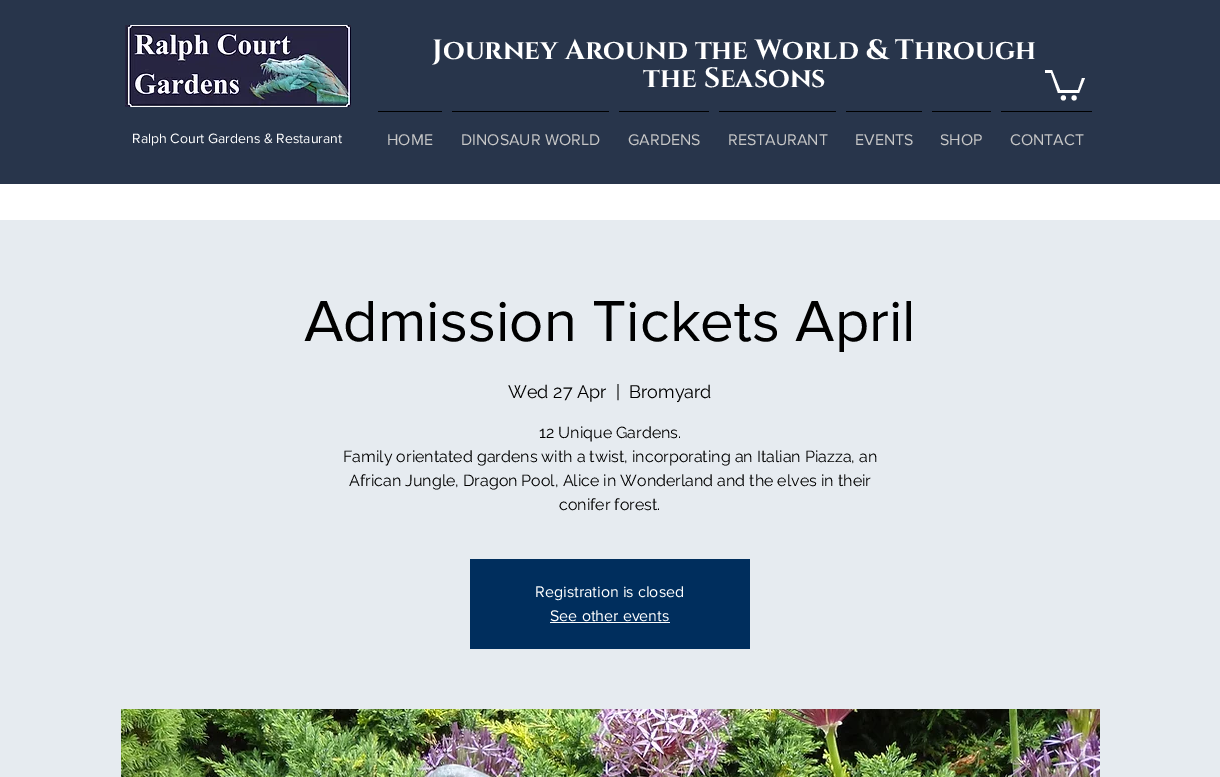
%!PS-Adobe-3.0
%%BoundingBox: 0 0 1220 777
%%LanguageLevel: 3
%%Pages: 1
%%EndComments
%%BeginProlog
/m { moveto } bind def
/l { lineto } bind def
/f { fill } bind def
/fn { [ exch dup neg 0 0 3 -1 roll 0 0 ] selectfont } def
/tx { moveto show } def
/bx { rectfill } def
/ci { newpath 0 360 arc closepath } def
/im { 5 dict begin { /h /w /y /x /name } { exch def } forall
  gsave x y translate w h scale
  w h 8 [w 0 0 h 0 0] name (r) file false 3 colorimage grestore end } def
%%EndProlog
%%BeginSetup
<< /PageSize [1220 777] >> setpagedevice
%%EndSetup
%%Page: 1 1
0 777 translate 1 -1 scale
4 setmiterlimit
1 setgray
0 0 1220 777 bx
0.157 0.208 0.294 setrgbcolor
0 0 1220 184 bx
(image0.raw) 125 25 226 82 im
/Cinzel-Bold 28 fn
1 setgray
(Journey Around the World & Through) 432 59 tx
(the Seasons) 643 87 tx
1085 78 m 1079 93 l 1058 93 l 1051 73 l 1045 73 l 1045 70 l 1052 70 l 1060 90 l 1078 90 l 1082 78 l f
1074.1 97.9 2.6 ci f
1063.4 97.9 2.6 ci f
/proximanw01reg-Regular 14 fn
(Ralph Court Gardens & Restaurant) 132 143 tx
0 setgray
378 111 64 1 bx
/proximanw01reg-Regular 16 fn
0.78 setgray
(HOME) 387 145 tx
0 setgray
452 111 157 1 bx
0.78 setgray
(DINOSAUR WORLD) 461 145 tx
0 setgray
619 111 90 1 bx
0.78 setgray
(GARDENS) 628 145 tx
0 setgray
719 111 117 1 bx
0.78 setgray
(RESTAURANT) 728 145 tx
0 setgray
846 111 76 1 bx
0.78 setgray
(EVENTS) 855 145 tx
0 setgray
932 111 59 1 bx
0.78 setgray
(SHOP) 940 145 tx
0 setgray
1001 111 91 1 bx
0.78 setgray
(CONTACT) 1010 145 tx
0.902 0.922 0.941 setrgbcolor
0 220 1220 557 bx
/proximanw01reg-Regular 60 fn
0 setgray
(Admission Tickets April) 304 341 tx
/Raleway-Regular 18 fn
(Wed 27 Apr) 508 398 tx
(|) 616 398 tx
(Bromyard) 629 398 tx
/Raleway-Regular 16 fn
(12 Unique Gardens.) 539 438 tx
(Family orientated gardens with a twist, incorporating an Italian Piazza, an) 343 462 tx
(African Jungle, Dragon Pool, Alice in Wonderland and the elves in their) 349 486 tx
(conifer forest.) 559 510 tx
0 0.18 0.365 setrgbcolor
470 559 280 90 bx
/proximanw01reg-Regular 16 fn
1 setgray
(Registration is closed) 535 597 tx
(See other events) 550 621 tx
550 622 120 1 bx
(image1.raw) 121 709 979 68 im
showpage
%%EOF
